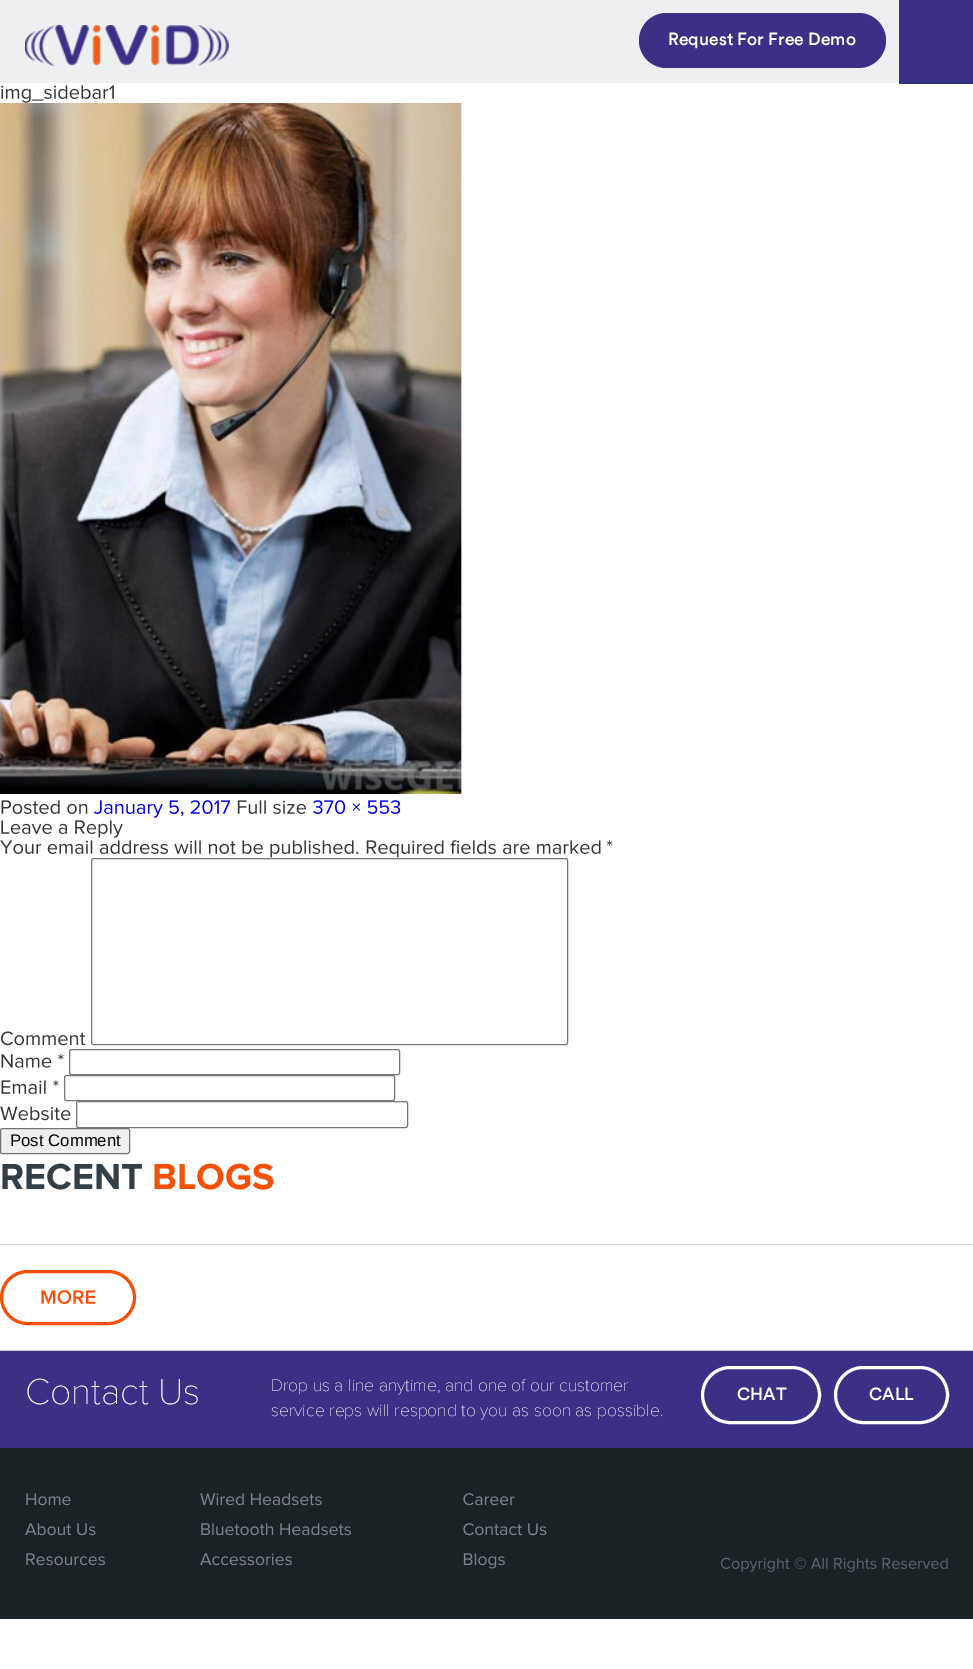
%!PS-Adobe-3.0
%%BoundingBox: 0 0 973 1669
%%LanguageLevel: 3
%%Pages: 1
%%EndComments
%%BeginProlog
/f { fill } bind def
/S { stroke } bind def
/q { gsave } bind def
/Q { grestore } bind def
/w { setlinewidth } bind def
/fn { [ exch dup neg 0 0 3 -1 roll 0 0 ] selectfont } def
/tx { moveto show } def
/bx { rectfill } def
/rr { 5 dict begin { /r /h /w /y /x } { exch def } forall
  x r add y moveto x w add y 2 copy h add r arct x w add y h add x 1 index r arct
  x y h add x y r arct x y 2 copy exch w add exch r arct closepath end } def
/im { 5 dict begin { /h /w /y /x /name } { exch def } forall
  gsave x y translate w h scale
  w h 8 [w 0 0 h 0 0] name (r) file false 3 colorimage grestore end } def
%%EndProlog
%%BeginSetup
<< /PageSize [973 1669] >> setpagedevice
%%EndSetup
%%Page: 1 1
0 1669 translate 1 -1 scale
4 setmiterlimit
1 setgray
0 0 973 1669 bx
0.929 0.941 0.945 setrgbcolor
0 0 899 83 bx
(image0.raw) 25 25 204 41 im
0.224 0.192 0.522 setrgbcolor
639 13 247 55 27.5 rr f
/Circular-Medium 17.5 fn
1 setgray
(Request For Free Demo) 668 45 tx
0.224 0.192 0.522 setrgbcolor
899 0 74 84 bx
(image1.raw) 1 85 113 18 im
(image2.raw) 0 103 463 691 im
(image3.raw) 1 800 87 14 im
(image4.raw) 94 800 137 18 im
(image5.raw) 237 800 69 14 im
(image6.raw) 313 800 88 14 im
(image7.raw) 1 820 122 18 im
(image8.raw) 0 840 359 18 im
(image9.raw) 366 840 235 18 im
(image10.raw) 607 840 6 6 im
(image11.raw) 1 1031 85 15 im
0.463 setgray
91.5 858.5 476 186 2 rr S
(image12.raw) 1 1054 51 14 im
(image13.raw) 58 1053 6 7 im
69.5 1049.5 330 25 2 rr S
(image14.raw) 1 1080 45 14 im
(image15.raw) 53 1080 6 6 im
64.5 1075.5 330 25 2 rr S
(image16.raw) 0 1106 71 15 im
76.5 1101.5 331 26 2 rr S
0.937 setgray
0.5 1128.5 129 25 2 rr q f Q
0.463 setgray
S
/LiberationSans-Regular 16.75 fn
0 setgray
(Post Comment) 10 1146 tx
/ProximaNova-Bold 37.5 fn
0.196 0.243 0.282 setrgbcolor
(RECENT) 0 1189 tx
0.969 0.314 0.024 setrgbcolor
(BLOGS) 152 1189 tx
0.808 0.835 0.847 setrgbcolor
0 1244 973 1 bx
0 1350 973 1 bx
0.969 0.314 0.024 setrgbcolor
3 w
1.5 1271.5 133 52 26 rr S
(image17.raw) 41 1290 55 14 im
0.224 0.192 0.522 setrgbcolor
0 1351 973 97 bx
/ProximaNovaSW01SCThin-Thin 37.5 fn
1 setgray
(Contact Us) 25 1404 tx
/ProximaNovaSW01SCThin-Thin 17.5 fn
(Drop us a line anytime, and one of our customer) 271 1391 tx
(service reps will respond to you as soon as possible.) 271 1416 tx
702.5 1367.5 117 55 27.5 rr S
/Circular-Medium 17.5 fn
(CHAT) 737 1400 tx
835.5 1367.5 112 55 27.5 rr S
(CALL) 869 1400 tx
0.102 0.133 0.145 setrgbcolor
0 1448 973 171 bx
(image18.raw) 26 1493 45 13 im
(image19.raw) 25 1523 71 13 im
(image20.raw) 26 1553 79 13 im
(image21.raw) 200 1493 122 13 im
(image22.raw) 201 1523 150 13 im
(image23.raw) 200 1553 92 13 im
(image24.raw) 463 1493 52 13 im
(image25.raw) 463 1523 84 13 im
(image26.raw) 463 1553 42 16 im
(image27.raw) 720 1557 228 15 im
showpage
%%EOF
